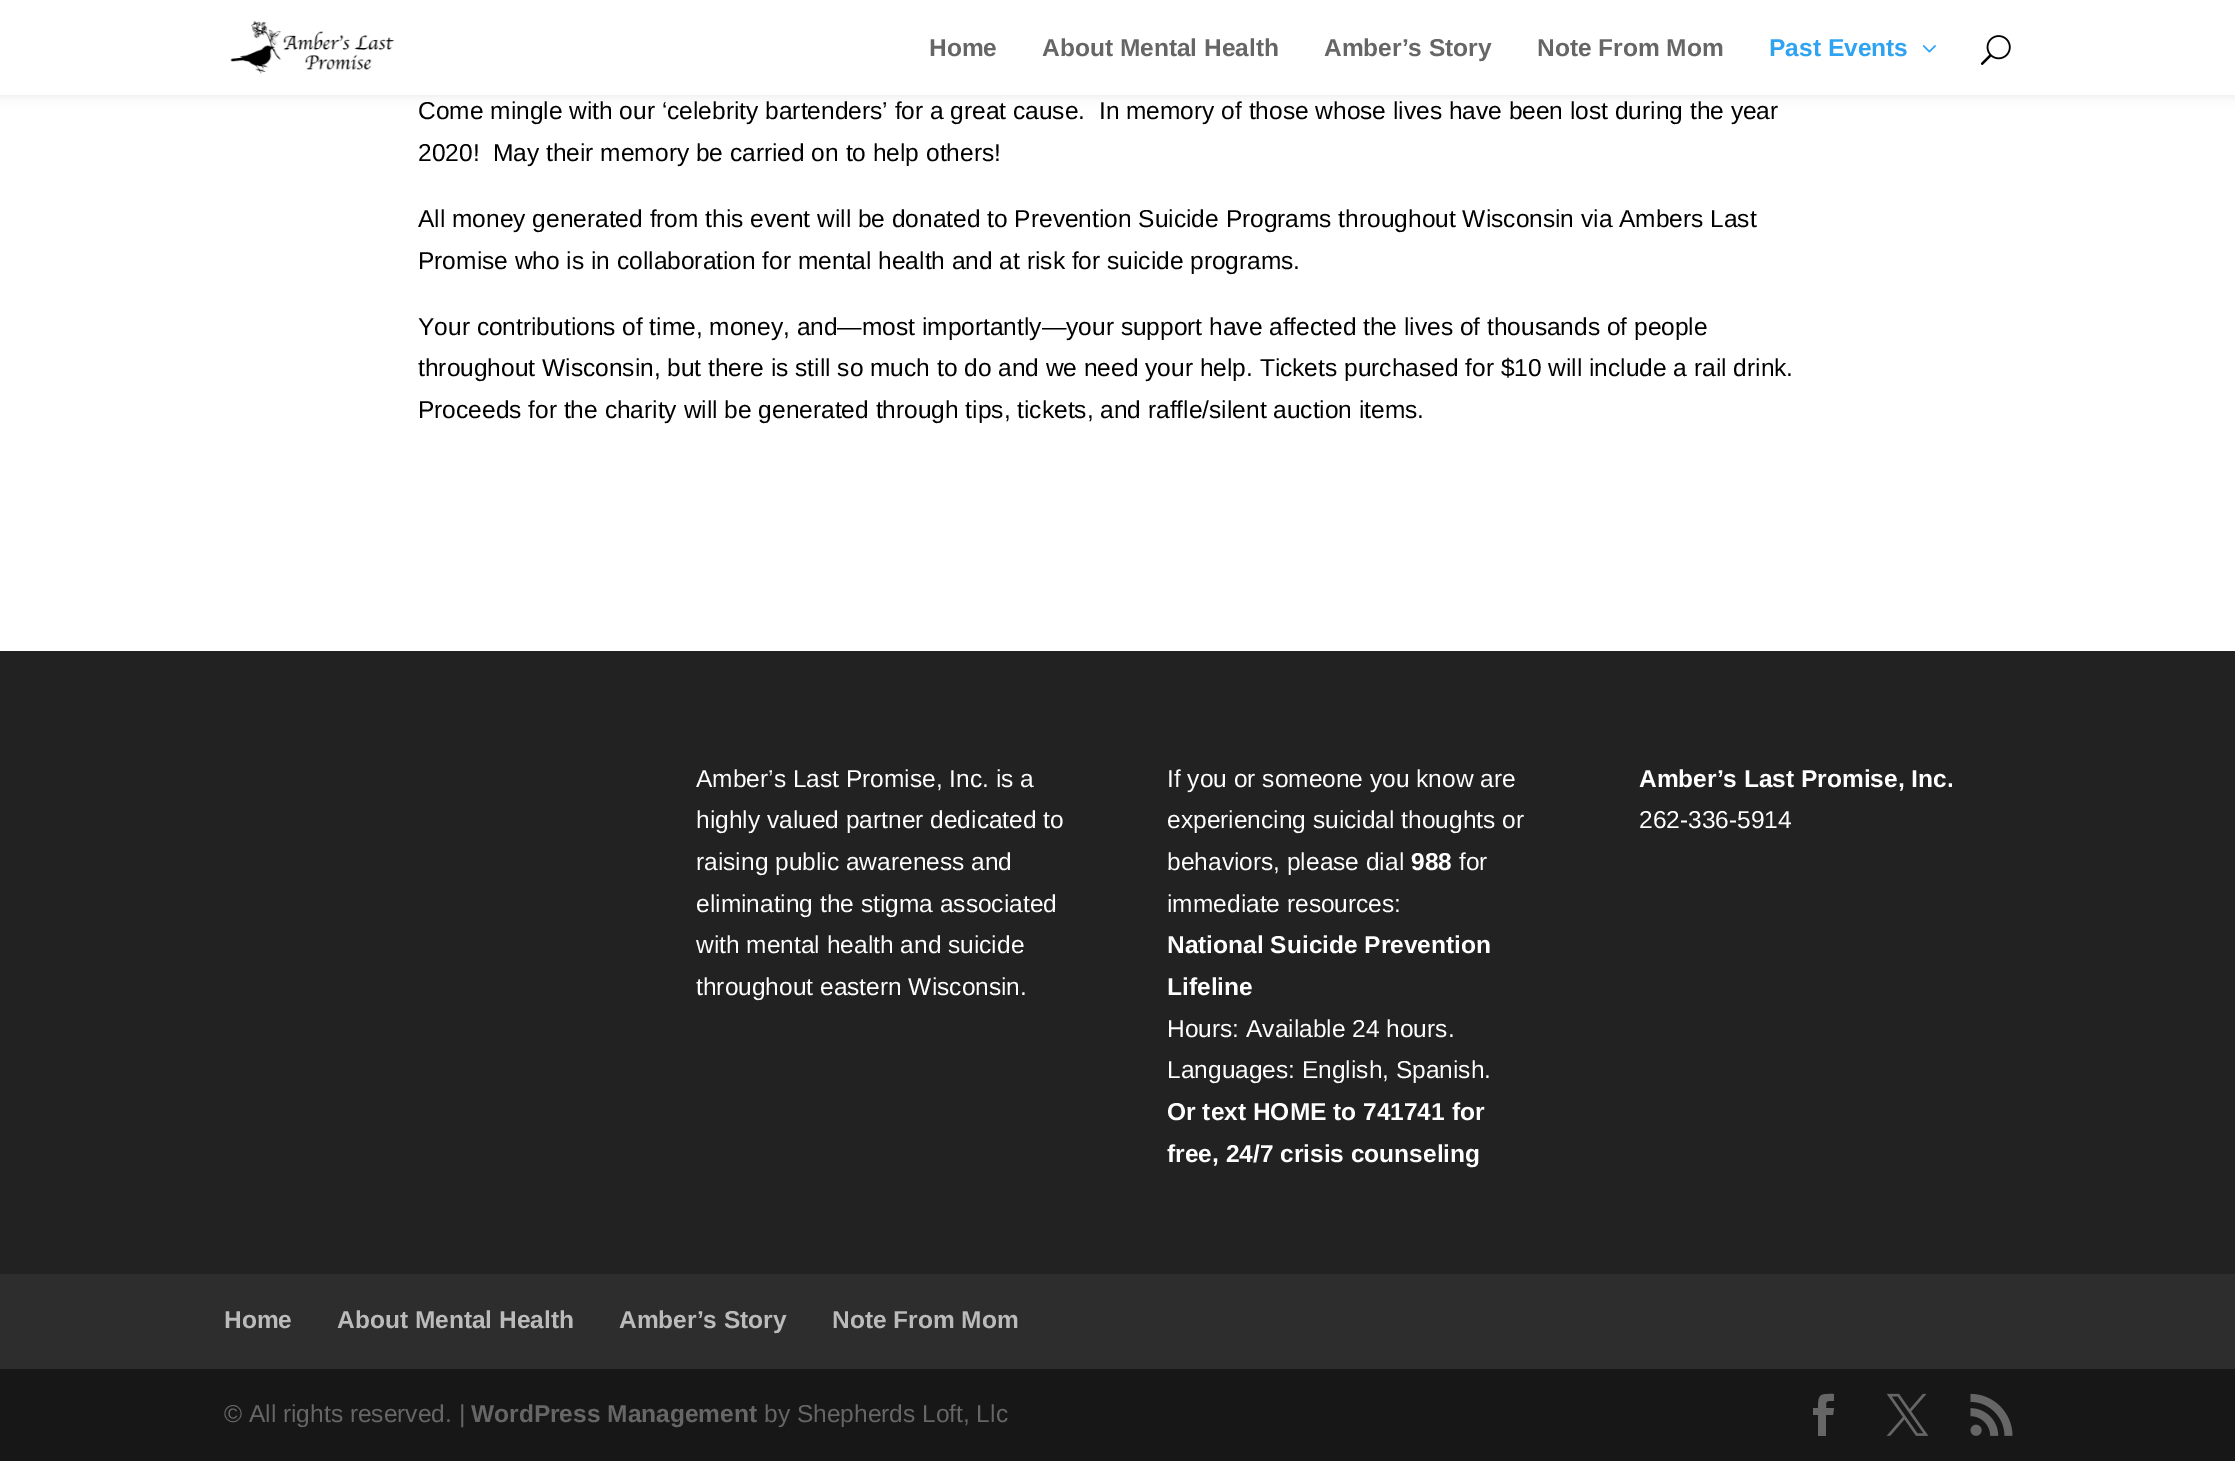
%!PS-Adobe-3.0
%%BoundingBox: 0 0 2235 1461
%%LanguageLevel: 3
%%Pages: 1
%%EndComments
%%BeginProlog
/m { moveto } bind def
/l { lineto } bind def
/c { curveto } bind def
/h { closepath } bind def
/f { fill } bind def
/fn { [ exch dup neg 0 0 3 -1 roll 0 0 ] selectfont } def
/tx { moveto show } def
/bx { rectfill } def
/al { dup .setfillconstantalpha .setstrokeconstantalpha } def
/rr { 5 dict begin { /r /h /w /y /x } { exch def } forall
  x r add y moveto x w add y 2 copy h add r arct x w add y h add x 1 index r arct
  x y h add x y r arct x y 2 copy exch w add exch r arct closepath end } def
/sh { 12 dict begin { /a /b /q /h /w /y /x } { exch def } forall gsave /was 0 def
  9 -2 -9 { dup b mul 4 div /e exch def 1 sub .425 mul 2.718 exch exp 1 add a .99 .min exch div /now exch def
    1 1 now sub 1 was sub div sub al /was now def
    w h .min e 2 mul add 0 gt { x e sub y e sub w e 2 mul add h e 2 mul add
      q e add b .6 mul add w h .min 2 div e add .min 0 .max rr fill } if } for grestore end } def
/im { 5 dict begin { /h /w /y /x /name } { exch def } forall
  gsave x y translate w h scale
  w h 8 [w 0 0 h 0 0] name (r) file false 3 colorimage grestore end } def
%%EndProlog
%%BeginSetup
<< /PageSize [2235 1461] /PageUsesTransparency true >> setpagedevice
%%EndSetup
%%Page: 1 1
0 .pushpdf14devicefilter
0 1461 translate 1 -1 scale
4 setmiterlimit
0.133 setgray
0 0 2235 1461 bx
1 setgray
0 95 2235 556 bx
0 setgray
0 0 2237 95 0 6 0.1 sh
1 setgray
0 0 2235 95 bx
(image0.raw) 230 21 165 53 im
/LiberationSans-Bold 24.5 fn
0.4 setgray
(Home) 929 56 tx
(About Mental Health) 1042 56 tx
(Amber’s Story) 1324 56 tx
(Note From Mom) 1537 56 tx
0.18 0.639 0.949 setrgbcolor
(Past Events) 1769 56 tx
(image1.raw) 1922 45 14 8 im
(image2.raw) 1980 35 31 30 im
/LiberationSans-Regular 24.5 fn
0 setgray
(Come mingle with our ‘celebrity bartenders’ for a great cause.  In memory of those whose lives have been lost during the year) 418 119 tx
(2020!  May their memory be carried on to help others!) 418 161 tx
(All money generated from this event will be donated to Prevention Suicide Programs throughout Wisconsin via Ambers Last) 418 227 tx
(Promise who is in collaboration for mental health and at risk for suicide programs.) 418 269 tx
(Your contributions of time, money, and—most importantly—your support have affected the lives of thousands of people) 418 335 tx
(throughout Wisconsin, but there is still so much to do and we need your help. Tickets purchased for $10 will include a rail drink.) 418 376 tx
(Proceeds for the charity will be generated through tips, tickets, and raffle/silent auction items.) 418 418 tx
1 setgray
(Amber’s Last Promise, Inc. is a) 696 787 tx
(highly valued partner dedicated to) 696 828 tx
(raising public awareness and) 696 870 tx
(eliminating the stigma associated) 696 912 tx
(with mental health and suicide) 696 953 tx
(throughout eastern Wisconsin.) 696 995 tx
(If you or someone you know are) 1167 787 tx
(experiencing suicidal thoughts or) 1167 828 tx
(behaviors, please dial) 1167 870 tx
/LiberationSans-Bold 24.5 fn
(988) 1411 870 tx
/LiberationSans-Regular 24.5 fn
(for) 1459 870 tx
(immediate resources:) 1167 912 tx
/LiberationSans-Bold 24.5 fn
(National Suicide Prevention) 1167 953 tx
(Lifeline) 1167 995 tx
/LiberationSans-Regular 24.5 fn
(Hours: Available 24 hours.) 1167 1037 tx
(Languages: English, Spanish.) 1167 1078 tx
/LiberationSans-Bold 24.5 fn
(Or text HOME to 741741 for) 1167 1120 tx
(free, 24/7 crisis counseling) 1167 1162 tx
(Amber’s Last Promise, Inc.) 1639 787 tx
/LiberationSans-Regular 24.5 fn
(262-336-5914) 1639 828 tx
0.176 setgray
0 1274 2235 95 bx
/LiberationSans-Bold 24.5 fn
0.733 setgray
(Home) 224 1328 tx
(About Mental Health) 337 1328 tx
(Amber’s Story) 619 1328 tx
(Note From Mom) 832 1328 tx
0.09 setgray
0 1369 2235 92 bx
/LiberationSans-Regular 24.5 fn
0.4 setgray
(© All rights reserved. |) 224 1422 tx
/LiberationSans-Bold 24.5 fn
(WordPress Management) 471 1422 tx
/LiberationSans-Regular 24.5 fn
(by Shepherds Loft, Llc) 764 1422 tx
1818 1436 m 1826 1436 l 1826 1415 l 1833 1415 l 1834 1408 l 1826 1408 l 1826 1400 1826 1401 1834 1401 c 1834 1394 l 1821 1394 1818 1393 1818 1408 c 1813 1408 l 1813 1415 l 1818 1415 l h f
(image3.raw) 1886 1393 43 43 im
(image4.raw) 1970 1393 43 43 im
.poppdf14devicefilter showpage
%%EOF
